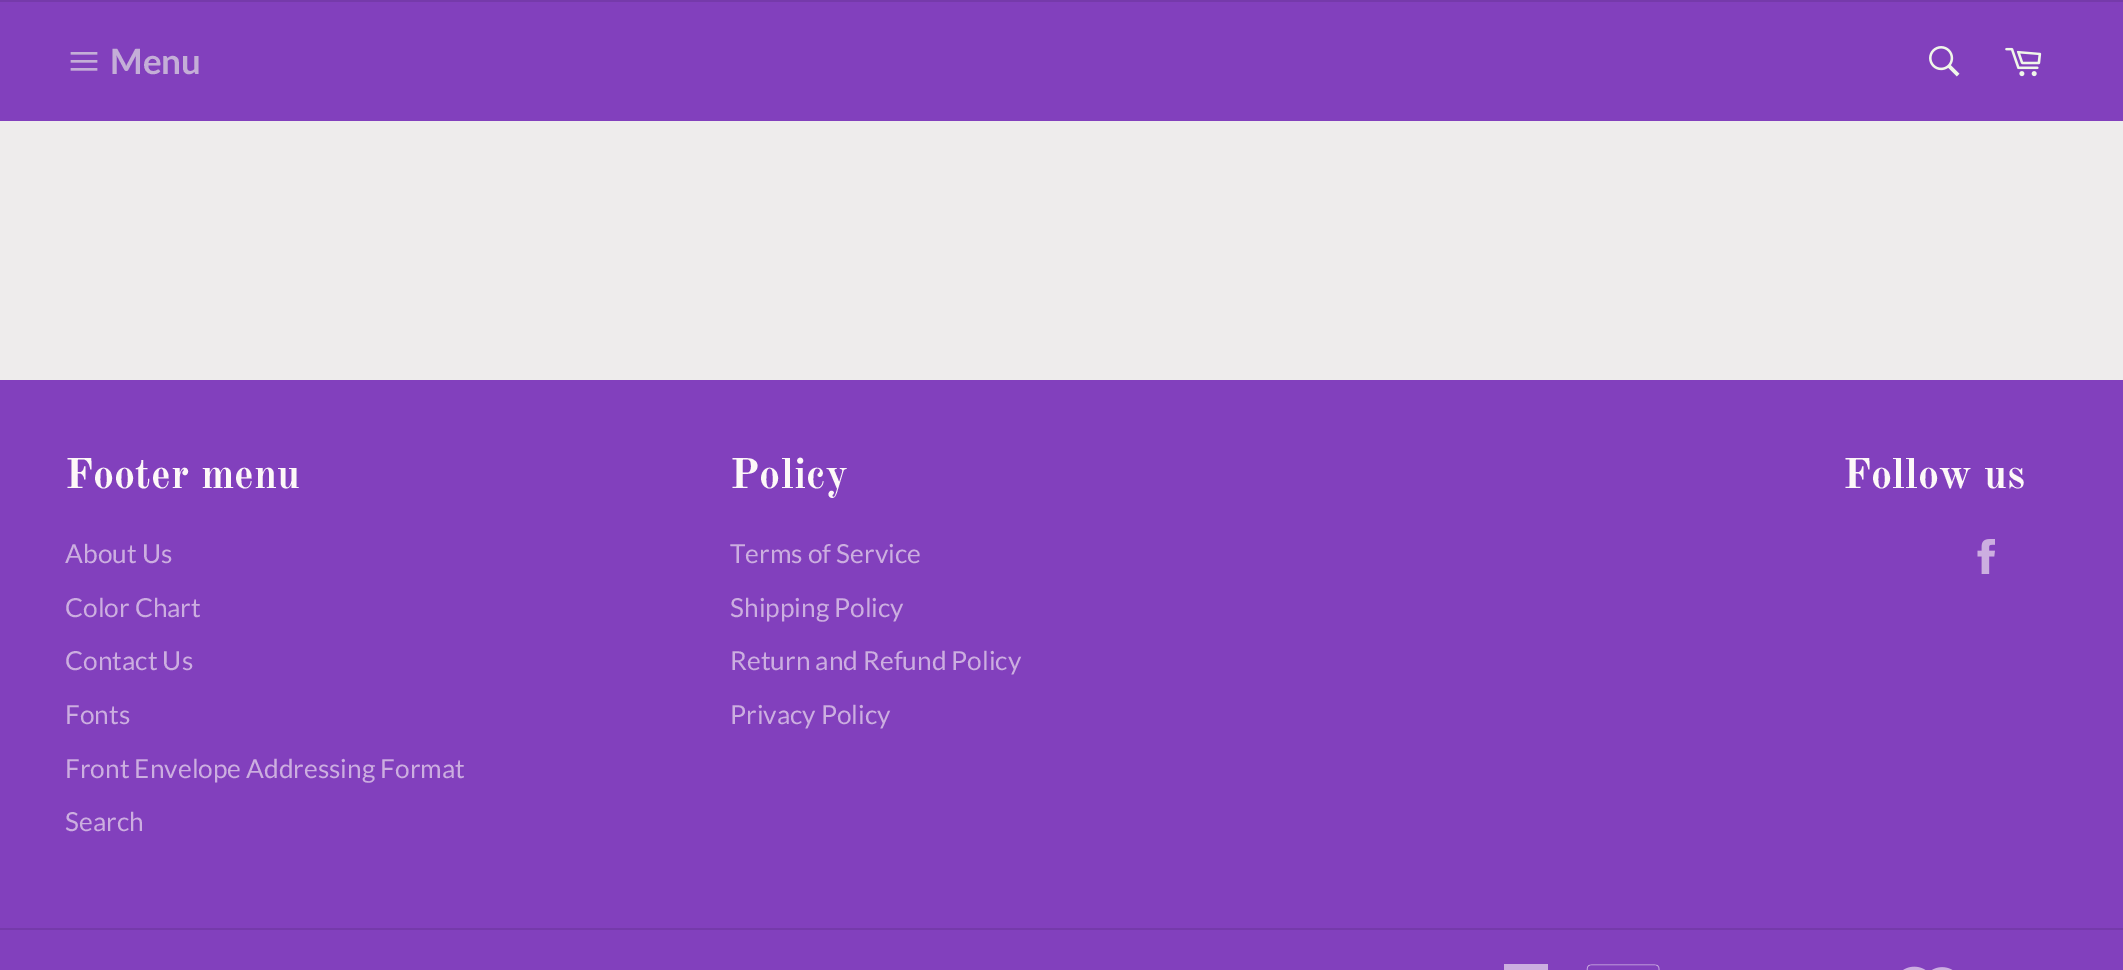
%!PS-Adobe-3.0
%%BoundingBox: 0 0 2123 970
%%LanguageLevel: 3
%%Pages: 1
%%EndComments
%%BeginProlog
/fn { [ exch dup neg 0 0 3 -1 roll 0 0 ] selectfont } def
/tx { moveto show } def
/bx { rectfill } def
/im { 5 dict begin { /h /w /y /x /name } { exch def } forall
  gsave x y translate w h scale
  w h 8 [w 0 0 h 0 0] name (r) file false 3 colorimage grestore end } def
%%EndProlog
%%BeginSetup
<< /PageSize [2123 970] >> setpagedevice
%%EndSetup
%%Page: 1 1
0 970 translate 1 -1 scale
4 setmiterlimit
0.933 0.925 0.925 setrgbcolor
0 0 2123 970 bx
0.51 0.251 0.741 setrgbcolor
0 2 2123 119 bx
0.459 0.227 0.667 setrgbcolor
0 0 2123 2 bx
(image0.raw) 70 52 28 19 im
/Lato-Bold 35 fn
0.769 0.682 0.843 setrgbcolor
(Menu) 110 74 tx
(image1.raw) 1929 46 31 31 im
(image2.raw) 2005 47 37 30 im
0.51 0.251 0.741 setrgbcolor
0 380 2123 590 bx
/OldStandardTT-Bold 42 fn
0.992 0.973 0.973 setrgbcolor
(Footer menu) 65 488 tx
/Lato-Regular 26.25 fn
0.8 0.682 0.878 setrgbcolor
(About Us) 65 563 tx
(Color Chart) 65 617 tx
(Contact Us) 65 670 tx
(Fonts) 65 724 tx
(Front Envelope Addressing Format) 65 778 tx
(Search) 65 831 tx
/OldStandardTT-Bold 42 fn
0.992 0.973 0.973 setrgbcolor
(Policy) 730 488 tx
/Lato-Regular 26.25 fn
0.8 0.682 0.878 setrgbcolor
(Terms of Service) 730 563 tx
(Shipping Policy) 730 617 tx
(Return and Refund Policy) 730 670 tx
(Privacy Policy) 730 724 tx
/OldStandardTT-Bold 42 fn
0.992 0.973 0.973 setrgbcolor
(Follow us) 1843 488 tx
(image3.raw) 1977 539 18 35 im
0.459 0.227 0.667 setrgbcolor
0 928 2123 2 bx
0.8 0.682 0.878 setrgbcolor
1504 964 44 6 bx
(image4.raw) 1586 964 74 6 im
(image5.raw) 1903 966 50 4 im
showpage
%%EOF
